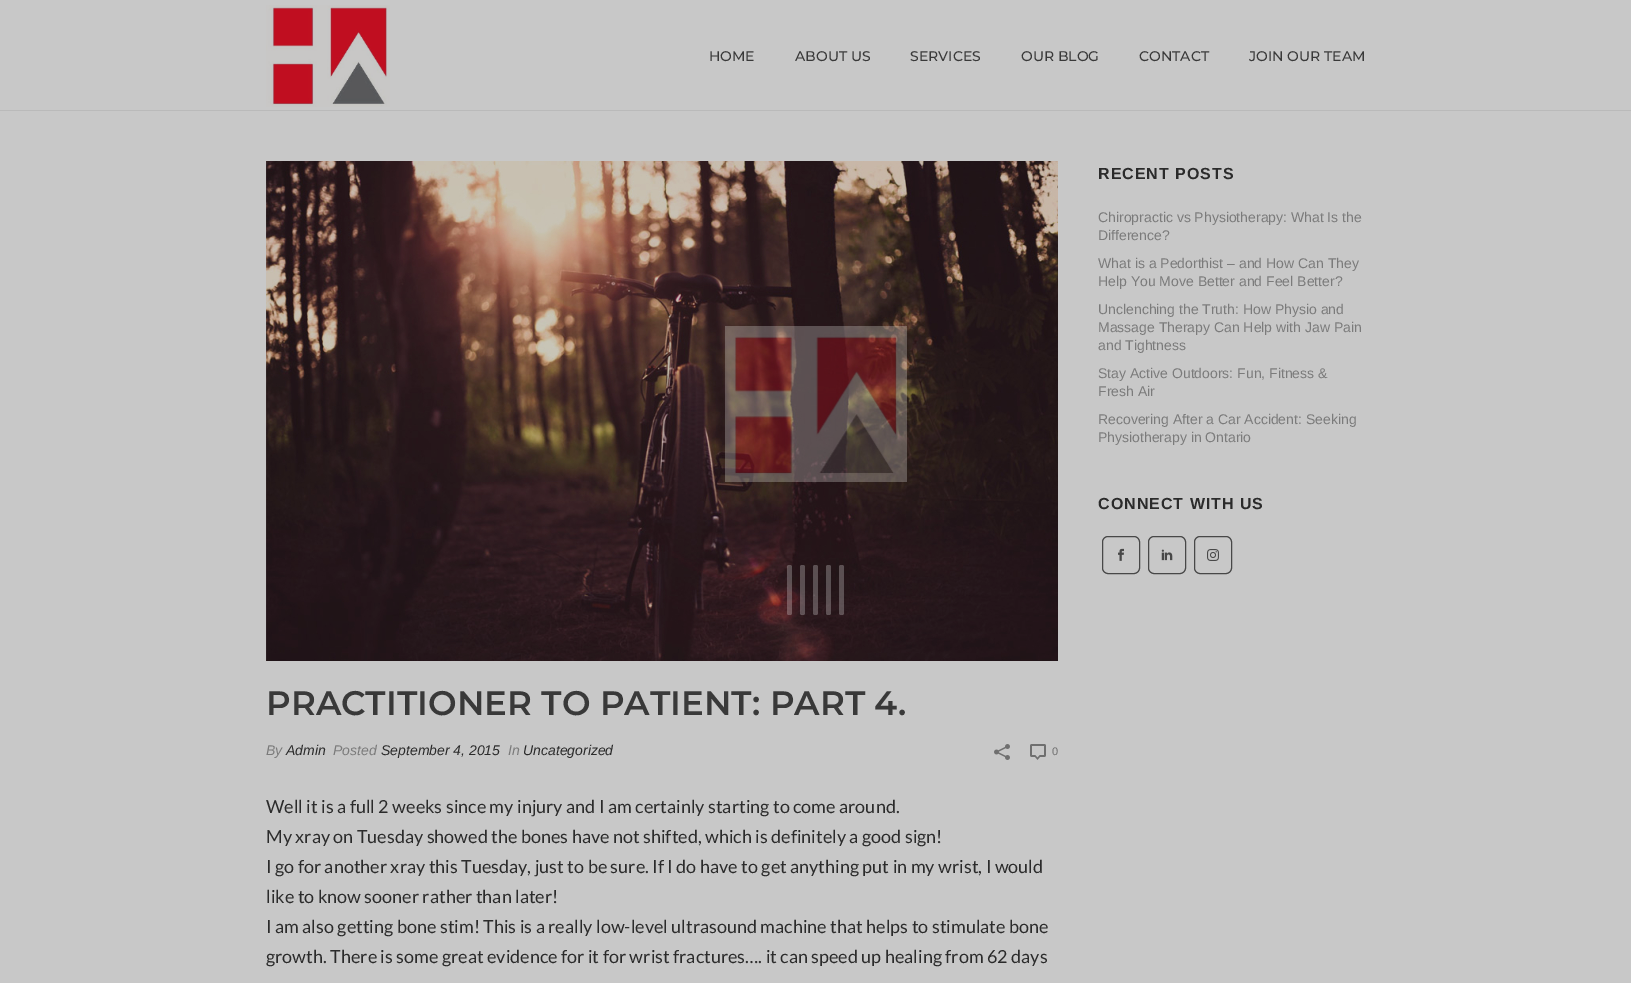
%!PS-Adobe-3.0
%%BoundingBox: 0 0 1631 983
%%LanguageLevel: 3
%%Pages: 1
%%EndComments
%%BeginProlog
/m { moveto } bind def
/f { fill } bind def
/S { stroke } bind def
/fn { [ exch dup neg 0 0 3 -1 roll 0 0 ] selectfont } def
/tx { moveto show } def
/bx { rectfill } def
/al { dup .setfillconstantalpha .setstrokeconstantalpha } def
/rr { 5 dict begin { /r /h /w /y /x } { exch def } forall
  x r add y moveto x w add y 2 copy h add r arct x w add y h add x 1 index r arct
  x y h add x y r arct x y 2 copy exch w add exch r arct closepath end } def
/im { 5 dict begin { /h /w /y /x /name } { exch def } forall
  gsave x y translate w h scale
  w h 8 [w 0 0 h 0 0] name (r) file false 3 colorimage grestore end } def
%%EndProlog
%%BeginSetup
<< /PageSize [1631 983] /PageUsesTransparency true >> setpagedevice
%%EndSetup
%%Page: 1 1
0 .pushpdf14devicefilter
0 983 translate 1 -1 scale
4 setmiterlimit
0.784 setgray
0 0 1631 983 bx
0.729 setgray
0 110 1631 1 bx
(image0.raw) 266 5 124 102 im
/Montserrat-Medium 14 fn
0.224 setgray
(HOME) 709 61 tx
(ABOUT US) 795 61 tx
(SERVICES) 910 61 tx
(OUR BLOG) 1021 61 tx
(CONTACT) 1139 61 tx
(JOIN OUR TEAM) 1249 61 tx
/LiberationSans-Bold 16 fn
0.169 setgray
1098 179 m 1 0 (RECENT POSTS) ashow
/LiberationSans-Regular 14 fn
0.482 setgray
(Chiropractic vs Physiotherapy: What Is the) 1098 222 tx
(Difference?) 1098 240 tx
(What is a Pedorthist – and How Can They) 1098 268 tx
(Help You Move Better and Feel Better?) 1098 286 tx
(Unclenching the Truth: How Physio and) 1098 314 tx
(Massage Therapy Can Help with Jaw Pain) 1098 332 tx
(and Tightness) 1098 350 tx
(Stay Active Outdoors: Fun, Fitness &) 1098 378 tx
(Fresh Air) 1098 396 tx
(Recovering After a Car Accident: Seeking) 1098 424 tx
(Physiotherapy in Ontario) 1098 442 tx
/LiberationSans-Bold 16 fn
0.169 setgray
1098 509 m 1 0 (CONNECT WITH US) ashow
0.282 setgray
1102.5 536.5 37 37 5.5 rr S
(image1.raw) 1118 548 6 13 im
1148.5 536.5 37 37 5.5 rr S
(image2.raw) 1161 549 12 12 im
1194.5 536.5 37 37 5.5 rr S
(image3.raw) 1207 549 12 12 im
(image4.raw) 266 161 792 500 im
/Montserrat-SemiBold 34 fn
0.224 setgray
(PRACTITIONER TO PATIENT: PART 4.) 266 715 tx
/LiberationSans-Italic 14 fn
0.482 setgray
(By) 266 755 tx
0.169 setgray
(Admin) 286 755 tx
0.482 setgray
(Posted) 333 755 tx
0.169 setgray
(September 4, 2015) 381 755 tx
0.482 setgray
(In) 508 755 tx
0.169 setgray
(Uncategorized) 523 755 tx
(image5.raw) 994 744 16 16 im
(image6.raw) 1030 744 16 16 im
/LiberationSans-Regular 11 fn
0.435 setgray
(0) 1052 755 tx
/Lato-Regular 18 fn
0.169 setgray
(Well it is a full 2 weeks since my injury and I am certainly starting to come around.) 266 813 tx
(My xray on Tuesday showed the bones have not shifted, which is definitely a good sign!) 266 843 tx
(I go for another xray this Tuesday, just to be sure. If I do have to get anything put in my wrist, I would) 266 873 tx
(like to know sooner rather than later!) 266 903 tx
(I am also getting bone stim! This is a really low-level ultrasound machine that helps to stimulate bone) 266 933 tx
(growth. There is some great evidence for it for wrist fractures…. it can speed up healing from 62 days) 266 963 tx
(image7.raw) 725 326 182 156 im
0.25 al
1 setgray
787 565 5 50 2 rr f
800 565 5 50 2 rr f
813 565 5 50 2 rr f
826 565 5 50 2 rr f
839 565 5 50 2 rr f
.poppdf14devicefilter showpage
%%EOF
